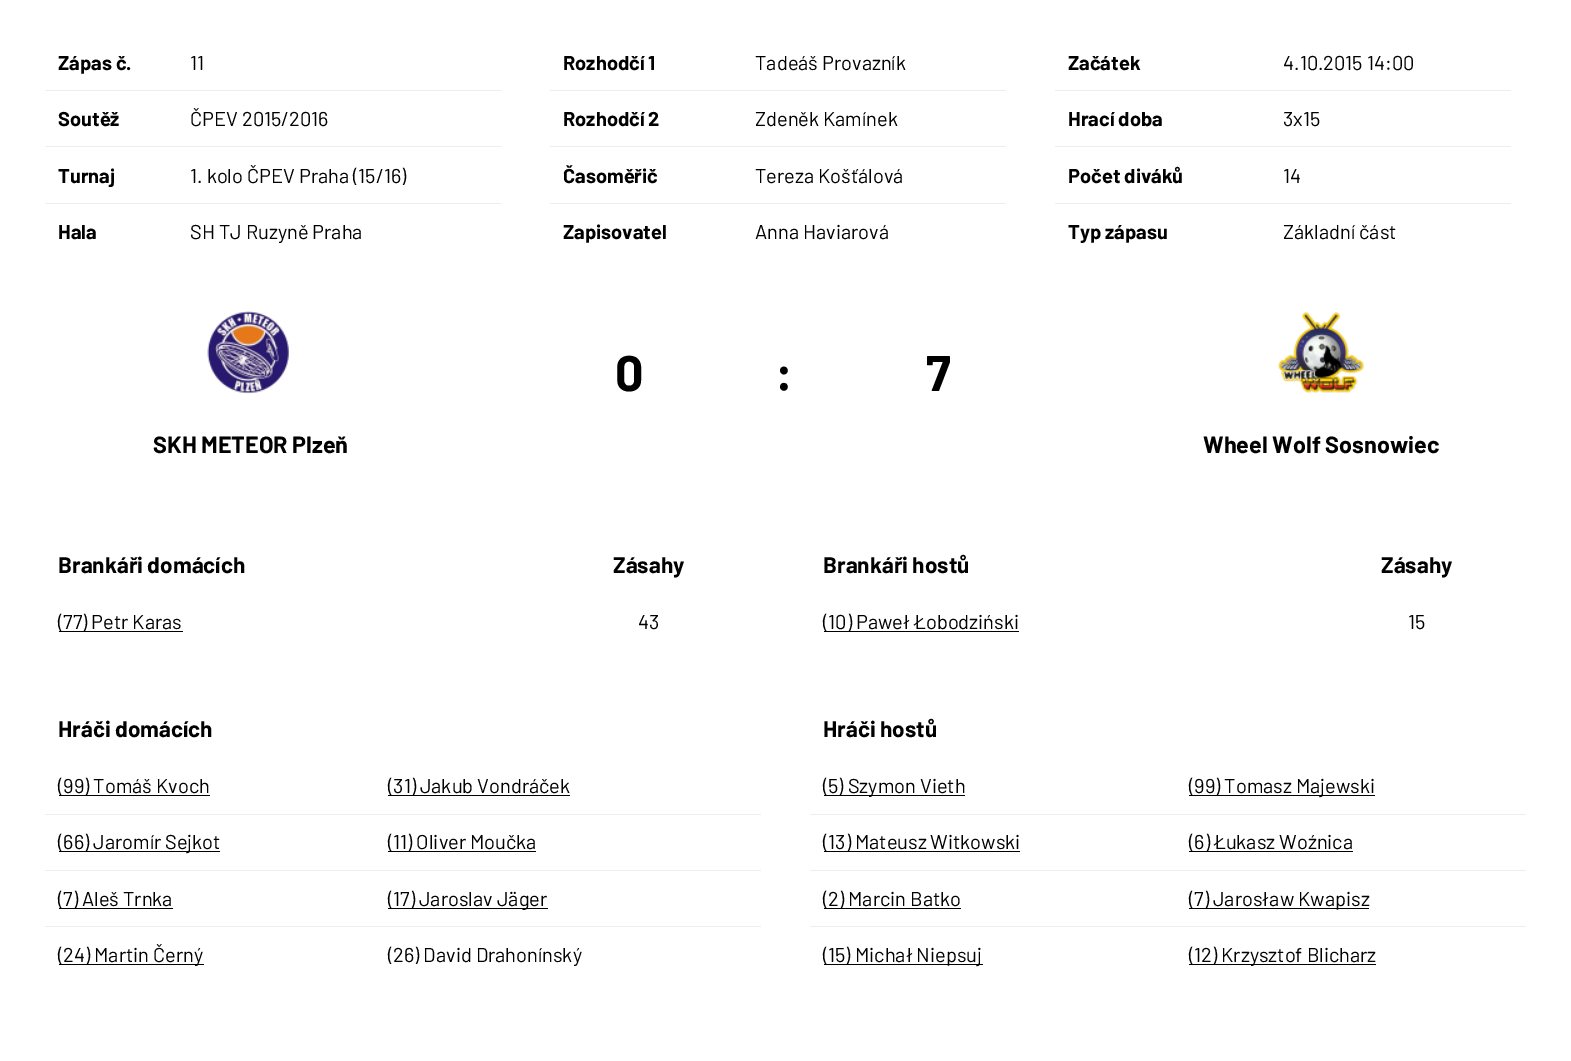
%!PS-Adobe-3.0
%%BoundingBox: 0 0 1571 1061
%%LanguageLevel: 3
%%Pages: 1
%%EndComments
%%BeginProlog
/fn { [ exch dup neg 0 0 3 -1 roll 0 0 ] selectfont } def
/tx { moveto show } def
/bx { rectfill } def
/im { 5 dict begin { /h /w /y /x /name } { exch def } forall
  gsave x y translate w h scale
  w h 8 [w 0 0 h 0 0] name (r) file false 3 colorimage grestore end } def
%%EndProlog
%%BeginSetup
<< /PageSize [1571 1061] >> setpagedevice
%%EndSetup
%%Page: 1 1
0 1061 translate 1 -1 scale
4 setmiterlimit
1 setgray
0 0 1571 1061 bx
/Barlow-Bold 20 fn
0 setgray
(Zápas č.) 58 70 tx
0.929 setgray
45 90 456 1 bx
/Barlow-Regular 20 fn
0 setgray
(11) 190 70 tx
/Barlow-Bold 20 fn
(Soutěž) 58 126 tx
0.929 setgray
45 146 456 1 bx
/Barlow-Regular 20 fn
0 setgray
(ČPEV 2015/2016) 190 126 tx
/Barlow-Bold 20 fn
(Turnaj) 58 183 tx
0.929 setgray
45 203 456 1 bx
/Barlow-Regular 20 fn
0 setgray
(1. kolo ČPEV Praha \(15/16\)) 190 183 tx
/Barlow-Bold 20 fn
(Hala) 58 239 tx
/Barlow-Regular 20 fn
(SH TJ Ruzyně Praha) 190 239 tx
/Barlow-Bold 20 fn
(Rozhodčí 1) 563 70 tx
0.929 setgray
550 90 456 1 bx
/Barlow-Regular 20 fn
0 setgray
(Tadeáš Provazník) 755 70 tx
/Barlow-Bold 20 fn
(Rozhodčí 2) 563 126 tx
0.929 setgray
550 146 456 1 bx
/Barlow-Regular 20 fn
0 setgray
(Zdeněk Kamínek) 755 126 tx
/Barlow-Bold 20 fn
(Časoměřič) 563 183 tx
0.929 setgray
550 203 456 1 bx
/Barlow-Regular 20 fn
0 setgray
(Tereza Košťálová) 755 183 tx
/Barlow-Bold 20 fn
(Zapisovatel) 563 239 tx
/Barlow-Regular 20 fn
(Anna Haviarová) 755 239 tx
/Barlow-Bold 20 fn
(Začátek) 1068 70 tx
0.929 setgray
1055 90 456 1 bx
/Barlow-Regular 20 fn
0 setgray
(4.10.2015 14:00) 1283 70 tx
/Barlow-Bold 20 fn
(Hrací doba) 1068 126 tx
0.929 setgray
1055 146 456 1 bx
/Barlow-Regular 20 fn
0 setgray
(3x15) 1283 126 tx
/Barlow-Bold 20 fn
(Počet diváků) 1068 183 tx
0.929 setgray
1055 203 456 1 bx
/Barlow-Regular 20 fn
0 setgray
(14) 1283 183 tx
/Barlow-Bold 20 fn
(Typ zápasu) 1068 239 tx
/Barlow-Regular 20 fn
(Základní část) 1283 239 tx
/Barlow-Bold 50 fn
(0) 615 391 tx
(:) 775 391 tx
(7) 926 391 tx
(image0.raw) 207 311 82 83 im
/Barlow-Bold 23.4 fn
(SKH METEOR Plzeň) 153 453 tx
(image1.raw) 1278 312 86 81 im
(Wheel Wolf Sosnowiec) 1203 453 tx
/Barlow-Bold 22.5 fn
(Brankáři domácích) 58 573 tx
(Zásahy) 613 573 tx
59 631 124 1 bx
/Barlow-Regular 20 fn
(\(77\) Petr Karas) 58 629 tx
(43) 638 629 tx
/Barlow-Bold 22.5 fn
(Brankáři hostů) 823 573 tx
(Zásahy) 1381 573 tx
824 631 195 1 bx
/Barlow-Regular 20 fn
(\(10\) Paweł Łobodziński) 823 629 tx
(15) 1408 629 tx
/Barlow-Bold 22.5 fn
(Hráči domácích) 58 737 tx
59 795 151 1 bx
/Barlow-Regular 20 fn
(\(99\) Tomáš Kvoch) 58 793 tx
0.929 setgray
45 814 716 1 bx
0 setgray
388 795 182 1 bx
(\(31\) Jakub Vondráček) 388 793 tx
59 851 161 1 bx
(\(66\) Jaromír Sejkot) 58 849 tx
0.929 setgray
45 870 716 1 bx
0 setgray
388 851 148 1 bx
(\(11\) Oliver Moučka) 388 849 tx
59 908 114 1 bx
(\(7\) Aleš Trnka) 58 906 tx
0.929 setgray
45 926 716 1 bx
0 setgray
388 908 160 1 bx
(\(17\) Jaroslav Jäger) 388 906 tx
59 964 145 1 bx
(\(24\) Martin Černý) 58 962 tx
(\(26\) David Drahonínský) 388 962 tx
/Barlow-Bold 22.5 fn
(Hráči hostů) 823 737 tx
824 795 141 1 bx
/Barlow-Regular 20 fn
(\(5\) Szymon Vieth) 823 793 tx
0.929 setgray
810 814 716 1 bx
0 setgray
1189 795 186 1 bx
(\(99\) Tomasz Majewski) 1189 793 tx
824 851 196 1 bx
(\(13\) Mateusz Witkowski) 823 849 tx
0.929 setgray
810 870 716 1 bx
0 setgray
1189 851 164 1 bx
(\(6\) Łukasz Woźnica) 1189 849 tx
824 908 137 1 bx
(\(2\) Marcin Batko) 823 906 tx
0.929 setgray
810 926 716 1 bx
0 setgray
1189 908 180 1 bx
(\(7\) Jarosław Kwapisz) 1189 906 tx
824 964 159 1 bx
(\(15\) Michał Niepsuj) 823 962 tx
1189 964 187 1 bx
(\(12\) Krzysztof Blicharz) 1189 962 tx
showpage
%%EOF
